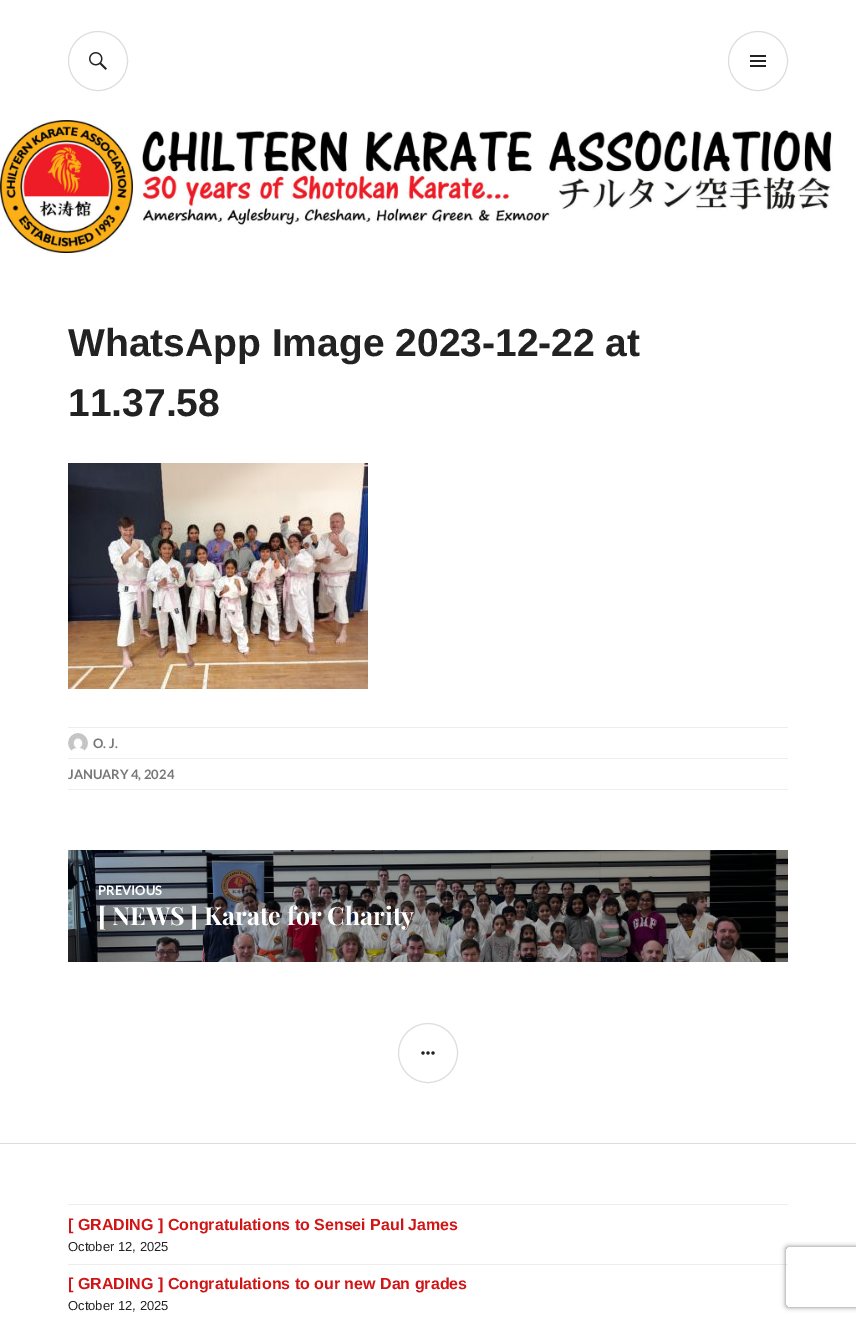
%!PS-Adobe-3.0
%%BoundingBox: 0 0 856 1321
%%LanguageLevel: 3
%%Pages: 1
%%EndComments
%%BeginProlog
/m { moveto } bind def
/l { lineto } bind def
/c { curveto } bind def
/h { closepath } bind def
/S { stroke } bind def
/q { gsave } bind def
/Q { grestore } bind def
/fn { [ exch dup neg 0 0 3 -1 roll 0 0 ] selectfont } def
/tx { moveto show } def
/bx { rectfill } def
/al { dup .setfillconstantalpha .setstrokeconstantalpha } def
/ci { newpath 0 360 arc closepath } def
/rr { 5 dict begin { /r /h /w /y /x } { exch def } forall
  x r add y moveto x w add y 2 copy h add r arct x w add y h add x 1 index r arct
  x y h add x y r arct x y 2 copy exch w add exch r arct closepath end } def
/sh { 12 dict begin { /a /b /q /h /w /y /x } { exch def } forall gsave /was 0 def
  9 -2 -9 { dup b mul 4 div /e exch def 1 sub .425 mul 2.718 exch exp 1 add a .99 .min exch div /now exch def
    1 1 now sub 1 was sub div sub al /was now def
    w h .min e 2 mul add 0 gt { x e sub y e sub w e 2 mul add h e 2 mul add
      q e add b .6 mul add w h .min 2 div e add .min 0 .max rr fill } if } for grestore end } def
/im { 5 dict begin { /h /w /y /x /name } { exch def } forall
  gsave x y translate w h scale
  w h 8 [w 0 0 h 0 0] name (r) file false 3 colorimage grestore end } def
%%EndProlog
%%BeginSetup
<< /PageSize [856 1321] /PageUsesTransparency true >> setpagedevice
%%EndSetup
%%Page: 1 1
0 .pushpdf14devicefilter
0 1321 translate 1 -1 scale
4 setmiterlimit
1 setgray
0 0 856 1321 bx
0.867 setgray
98 61 29.5 ci S
(image0.raw) 89 52 18 18 im
758 61 29.5 ci S
(image1.raw) 750 55 16 12 im
(image2.raw) 0 120 856 133 im
/LiberationSans-Bold 39 fn
0.133 setgray
(WhatsApp Image 2023-12-22 at) 68 356 tx
(11.37.58) 68 416 tx
(image3.raw) 68 463 300 226 im
0.933 setgray
68 727 720 1 bx
(image4.raw) 68 733 20 18 im
/Lato-Bold 13 fn
0.467 setgray
(O. J.) 93 748 tx
0.933 setgray
68 758 720 1 bx
68 789 720 1 bx
0.467 setgray
(JANUARY 4, 2024) 68 779 tx
(image5.raw) 68 850 720 112 im
1 setgray
(PREVIOUS) 98 895 tx
/PlayfairDisplay-Bold 25 fn
([ NEWS ] Karate for Charity) 98 925 tx
0.867 setgray
428 1053 29.5 ci S
(image6.raw) 421 1051 14 4 im
0 1143 856 1 bx
0.933 setgray
68 1204 720 1 bx
/LiberationSans-Bold 16 fn
0.82 0.078 0.082 setrgbcolor
([ GRADING ] Congratulations to Sensei Paul James) 68 1230 tx
/LiberationSans-Regular 13 fn
0.133 setgray
(October 12, 2025) 68 1251 tx
0.933 setgray
68 1264 720 1 bx
/LiberationSans-Bold 16 fn
0.82 0.078 0.082 setrgbcolor
([ GRADING ] Congratulations to our new Dan grades) 68 1289 tx
/LiberationSans-Regular 13 fn
0.133 setgray
(October 12, 2025) 68 1310 tx
q
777 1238 m 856 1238 l 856 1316 l 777 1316 l h 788 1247 m 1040 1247 l 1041 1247 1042 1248 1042 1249 c 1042 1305 l 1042 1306 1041 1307 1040 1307 c 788 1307 l 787 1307 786 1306 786 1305 c 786 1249 l 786 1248 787 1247 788 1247 c h eoclip newpath
0.502 setgray
786 1247 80 60 2 2.5 1 sh
Q
.poppdf14devicefilter showpage
%%EOF
